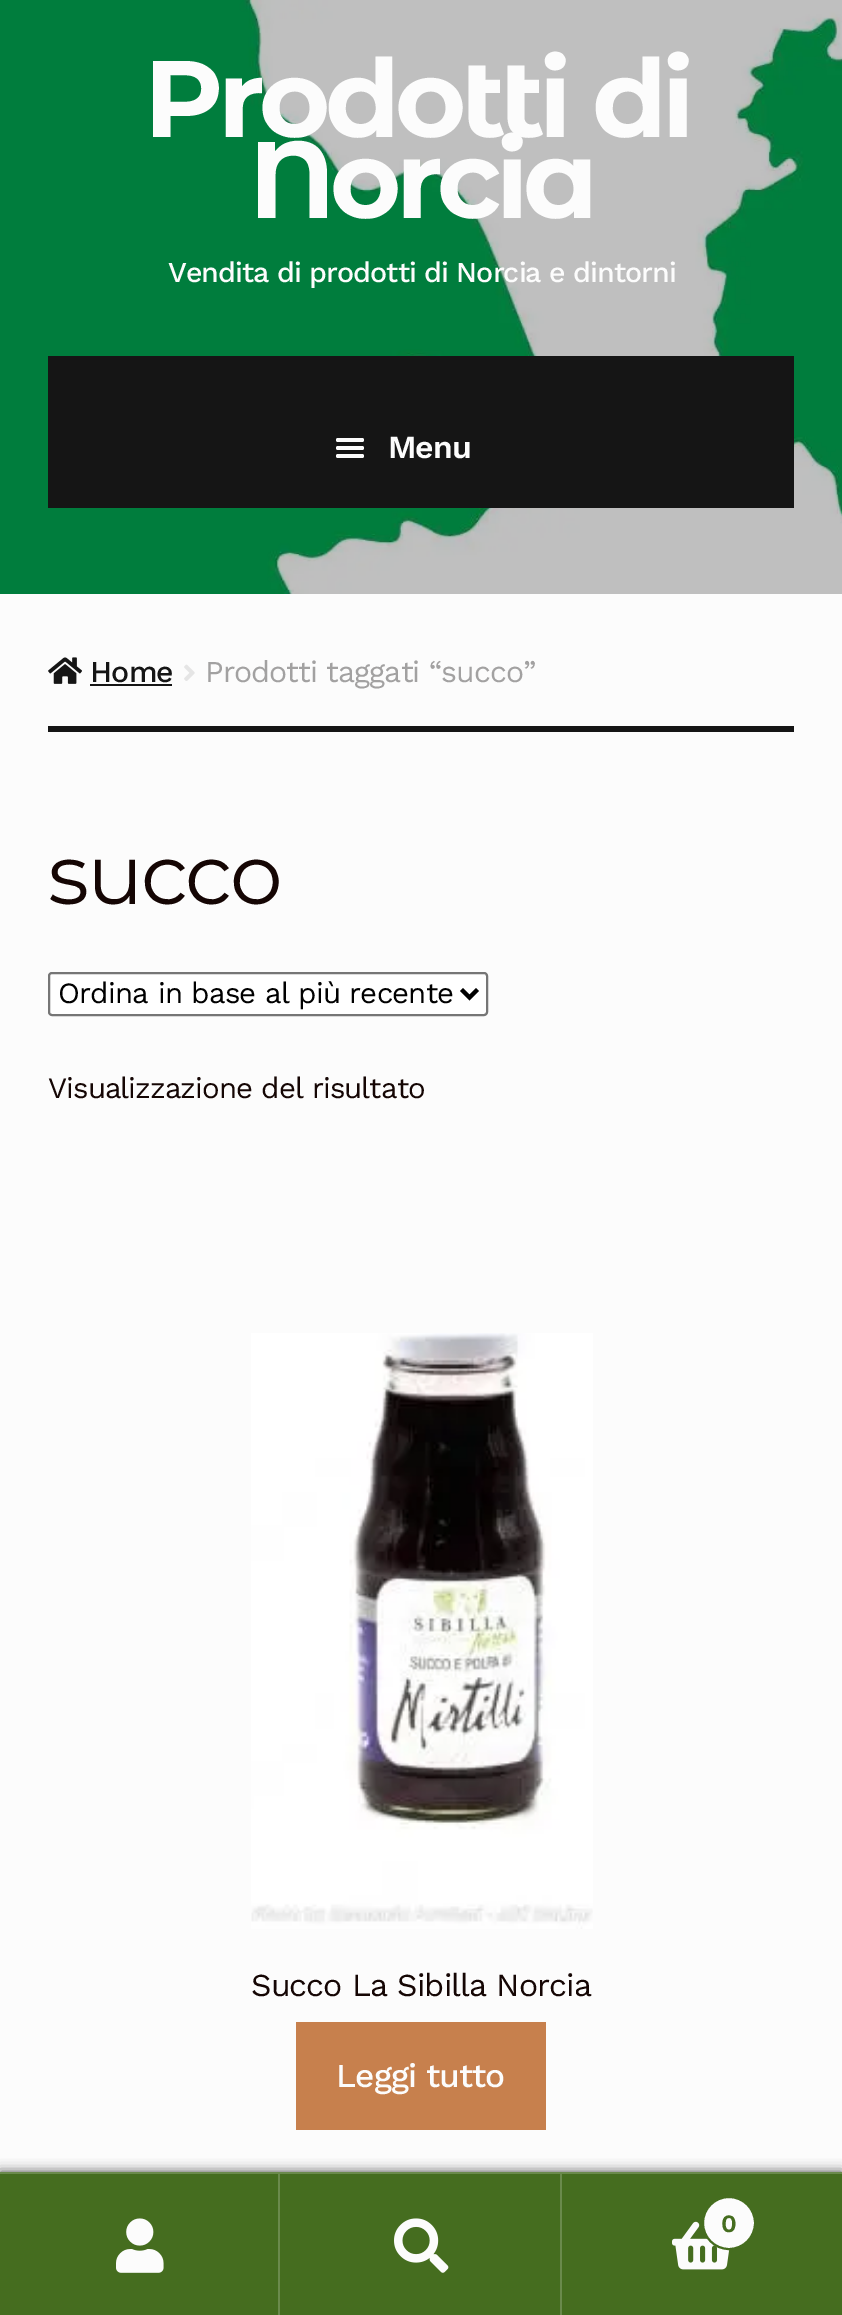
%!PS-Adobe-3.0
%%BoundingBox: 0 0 842 2315
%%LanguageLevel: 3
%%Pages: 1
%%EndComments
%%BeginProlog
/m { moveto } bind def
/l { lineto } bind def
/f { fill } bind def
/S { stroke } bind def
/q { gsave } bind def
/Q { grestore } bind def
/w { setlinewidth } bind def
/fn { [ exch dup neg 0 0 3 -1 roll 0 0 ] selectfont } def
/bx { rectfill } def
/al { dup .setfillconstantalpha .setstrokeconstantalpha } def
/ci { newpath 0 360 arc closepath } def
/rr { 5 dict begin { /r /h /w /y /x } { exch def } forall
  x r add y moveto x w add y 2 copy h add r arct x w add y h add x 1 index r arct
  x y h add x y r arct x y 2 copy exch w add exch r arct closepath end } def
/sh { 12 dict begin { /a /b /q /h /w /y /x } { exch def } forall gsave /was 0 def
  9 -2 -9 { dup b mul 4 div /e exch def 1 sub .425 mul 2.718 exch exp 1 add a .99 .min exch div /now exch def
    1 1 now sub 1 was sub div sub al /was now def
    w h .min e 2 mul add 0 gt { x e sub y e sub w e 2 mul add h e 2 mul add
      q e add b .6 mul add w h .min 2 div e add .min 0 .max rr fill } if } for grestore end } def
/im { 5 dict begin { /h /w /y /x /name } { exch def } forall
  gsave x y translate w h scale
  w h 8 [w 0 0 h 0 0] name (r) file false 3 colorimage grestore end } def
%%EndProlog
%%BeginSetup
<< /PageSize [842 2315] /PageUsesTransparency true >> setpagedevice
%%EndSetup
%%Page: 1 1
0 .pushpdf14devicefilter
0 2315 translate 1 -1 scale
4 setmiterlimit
0.988 setgray
0 0 842 2315 bx
(image0.raw) 0 0 842 594 im
/MontserratAlternates-Bold 108.75 fn
144 137 m -5.5 0 (Prodotti di) ashow
249 218 m -5.5 0 (Norcia) ashow
/WorkSans-Medium 28.6 fn
168 282 m -0.95 0 (Vendita di prodotti di Norcia e dintorni) ashow
0.082 setgray
48 356 746 152 bx
0.988 setgray
336 438 28 4 2 rr f
336 446 28 4 2 rr f
/WorkSans-SemiBold 32 fn
388 458 m -1 0 (Menu) ashow
336 454 28 4 2 rr f
0.082 setgray
48 726 746 6 bx
(image1.raw) 48 657 34 27 im
/WorkSans-Medium 30.25 fn
90 682 m -0.95 0 (Home) ashow
90 684 82 2 bx
(image2.raw) 184 664 11 17 im
/WorkSans-Regular 30.25 fn
0.635 0.631 0.631 setrgbcolor
205 682 m -0.95 0 (Prodotti taggati “succo”) ashow
/MontserratAlternates-Regular 84 fn
0.082 0.024 0.016 setrgbcolor
48 904 m -2.5 0 (succo) ashow
1 setgray
49 973 438 42 3 rr q f Q
0.463 setgray
2 w
S
0 setgray
4 w
461.5 989.5 m 469.5 997.5 l 477.5 989.5 l S
/WorkSans-Regular 29.4 fn
58 1003 m -0.8 0 (Ordina in base al più recente) ashow
0.082 0.024 0.016 setrgbcolor
48 1098 m -0.95 0 (Visualizzazione del risultato) ashow
(image3.raw) 251 1333 342 596 im
/WorkSans-Regular 32 fn
251 1996 m -0.9 0 (Succo La Sibilla Norcia) ashow
0.78 0.502 0.302 setrgbcolor
296 2022 250 108 bx
/WorkSans-Medium 33.5 fn
0.988 setgray
336 2087 m -0.95 0 (Leggi tutto) ashow
0 setgray
0 2172 842 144 0 6 0.7 sh
0.416 0.541 0.298 setrgbcolor
0 2172 842 2 bx
0.271 0.427 0.122 setrgbcolor
0 2174 278 141 bx
0.416 0.541 0.298 setrgbcolor
278 2174 2 141 bx
(image4.raw) 116 2218 48 55 im
0.271 0.427 0.122 setrgbcolor
280 2174 280 141 bx
0.416 0.541 0.298 setrgbcolor
560 2174 2 141 bx
(image5.raw) 394 2218 55 55 im
0.271 0.427 0.122 setrgbcolor
562 2174 280 141 bx
(image6.raw) 672 2221 58 49 im
0.988 setgray
729 2223 26 ci q f Q
0.271 0.427 0.122 setrgbcolor
2 w
S
/WorkSans-SemiBold 25 fn
721 2232 m -0.95 0 (0) ashow
.poppdf14devicefilter showpage
%%EOF
